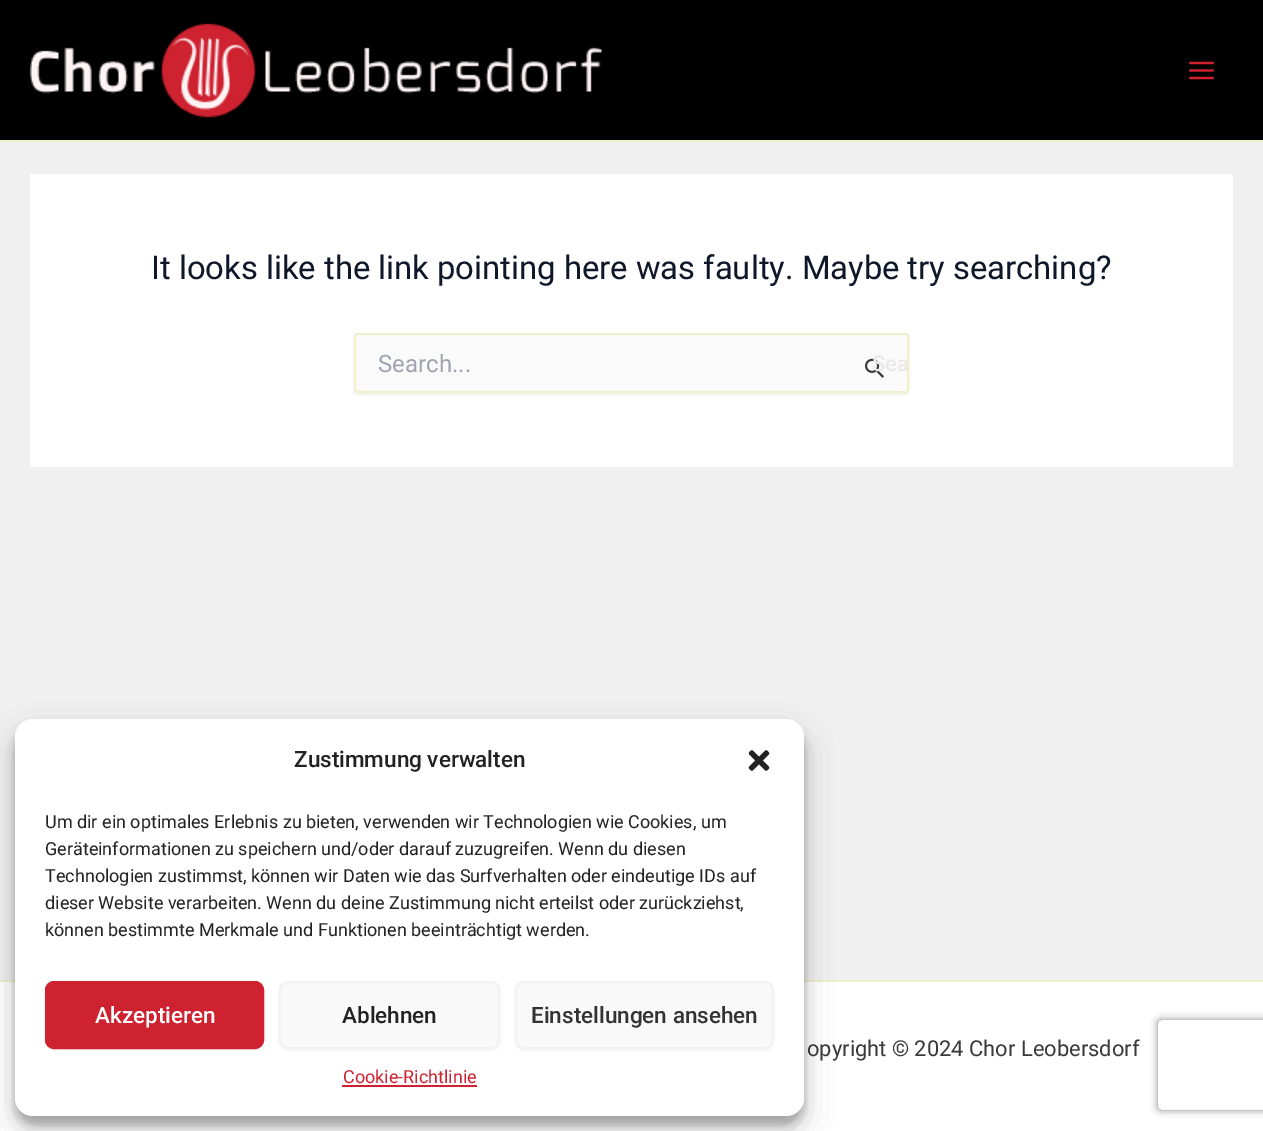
%!PS-Adobe-3.0
%%BoundingBox: 0 0 1263 1131
%%LanguageLevel: 3
%%Pages: 1
%%EndComments
%%BeginProlog
/m { moveto } bind def
/l { lineto } bind def
/c { curveto } bind def
/h { closepath } bind def
/f { fill } bind def
/S { stroke } bind def
/q { gsave } bind def
/Q { grestore } bind def
/w { setlinewidth } bind def
/fn { [ exch dup neg 0 0 3 -1 roll 0 0 ] selectfont } def
/tx { moveto show } def
/bx { rectfill } def
/al { dup .setfillconstantalpha .setstrokeconstantalpha } def
/rr { 5 dict begin { /r /h /w /y /x } { exch def } forall
  x r add y moveto x w add y 2 copy h add r arct x w add y h add x 1 index r arct
  x y h add x y r arct x y 2 copy exch w add exch r arct closepath end } def
/sh { 12 dict begin { /a /b /q /h /w /y /x } { exch def } forall gsave /was 0 def
  9 -2 -9 { dup b mul 4 div /e exch def 1 sub .425 mul 2.718 exch exp 1 add a .99 .min exch div /now exch def
    1 1 now sub 1 was sub div sub al /was now def
    w h .min e 2 mul add 0 gt { x e sub y e sub w e 2 mul add h e 2 mul add
      q e add b .6 mul add w h .min 2 div e add .min 0 .max rr fill } if } for grestore end } def
/im { 5 dict begin { /h /w /y /x /name } { exch def } forall
  gsave x y translate w h scale
  w h 8 [w 0 0 h 0 0] name (r) file false 3 colorimage grestore end } def
%%EndProlog
%%BeginSetup
<< /PageSize [1263 1131] /PageUsesTransparency true >> setpagedevice
%%EndSetup
%%Page: 1 1
0 .pushpdf14devicefilter
0 1131 translate 1 -1 scale
4 setmiterlimit
0.941 setgray
0 0 1263 1131 bx
0 setgray
0 0 1263 140 bx
0.941 0.941 0.8 setrgbcolor
0 140 1263 2 bx
(image0.raw) 30 23 572 95 im
(image1.raw) 1189 61 25 19 im
1 setgray
30 174 1203 293 bx
/Roboto-Regular 32.8 fn
0.059 0.09 0.165 setrgbcolor
(It looks like the link pointing here was faulty. Maybe try searching?) 151 279 tx
0 setgray
354 335 555 60 3 1.5 0.05 sh
0.98 setgray
355 334 553 58 2 rr q f Q
0.941 0.941 0.8 setrgbcolor
2 w
S
/Roboto-Regular 24 fn
0.612 0.639 0.686 setrgbcolor
(Search...) 378 372 tx
(image2.raw) 865 358 19 20 im
/Roboto-Medium 21.9 fn
0.914 setgray
(Sea) 872 371 tx
1 setgray
0 982 1263 149 bx
0.941 0.941 0.8 setrgbcolor
0 980 1263 2 bx
/Roboto-Regular 21.9 fn
0.227 setgray
(opyright © 2024 Chor Leobersdorf) 807 1056 tx
0 setgray
15 728 789 397 18 4.5 0.23 sh
15 734 789 397 18 15 0.19 sh
1 setgray
15 719 789 397 18 rr f
/Roboto-Medium 22.5 fn
0.133 setgray
(Zustimmung verwalten) 294 767 tx
(image3.raw) 748 750 22 21 im
/Roboto-Regular 18 fn
(Um dir ein optimales Erlebnis zu bieten, verwenden wir Technologien wie Cookies, um) 45 828 tx
(Geräteinformationen zu speichern und/oder darauf zuzugreifen. Wenn du diesen) 45 855 tx
(Technologien zustimmst, können wir Daten wie das Surfverhalten oder eindeutige IDs auf) 45 882 tx
(dieser Website verarbeiten. Wenn du deine Zustimmung nicht erteilst oder zurückziehst,) 45 909 tx
(können bestimmte Merkmale und Funktionen beeinträchtigt werden.) 45 936 tx
0 setgray
45 983 219 67 9 1.5 0.05 sh
0.808 0.133 0.188 setrgbcolor
46 982 217 66 8 rr q f Q
S
/Roboto-Medium 22.5 fn
1 setgray
(Akzeptieren) 95 1023 tx
0 setgray
279 983 221 67 9 1.5 0.05 sh
0.976 setgray
280 982 219 66 8 rr q f Q
0.949 setgray
S
0.133 setgray
(Ablehnen) 342 1023 tx
0 setgray
515 983 259 67 9 1.5 0.05 sh
0.976 setgray
516 982 257 66 8 rr q f Q
0.949 setgray
S
0.2 setgray
(Einstellungen ansehen) 531 1023 tx
/Roboto-Regular 18 fn
0.808 0.133 0.188 setrgbcolor
(Cookie-Richtlinie) 343 1083 tx
342 1085 135 2 bx
q
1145 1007 m 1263 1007 l 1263 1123 l 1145 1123 l h 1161 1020 m 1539 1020 l 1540.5 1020 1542 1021.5 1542 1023 c 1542 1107 l 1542 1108.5 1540.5 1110 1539 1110 c 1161 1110 l 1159.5 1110 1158 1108.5 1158 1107 c 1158 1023 l 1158 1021.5 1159.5 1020 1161 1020 c h eoclip newpath
0.502 setgray
1158 1020 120 90 3 4 1 sh
Q
.poppdf14devicefilter showpage
%%EOF
